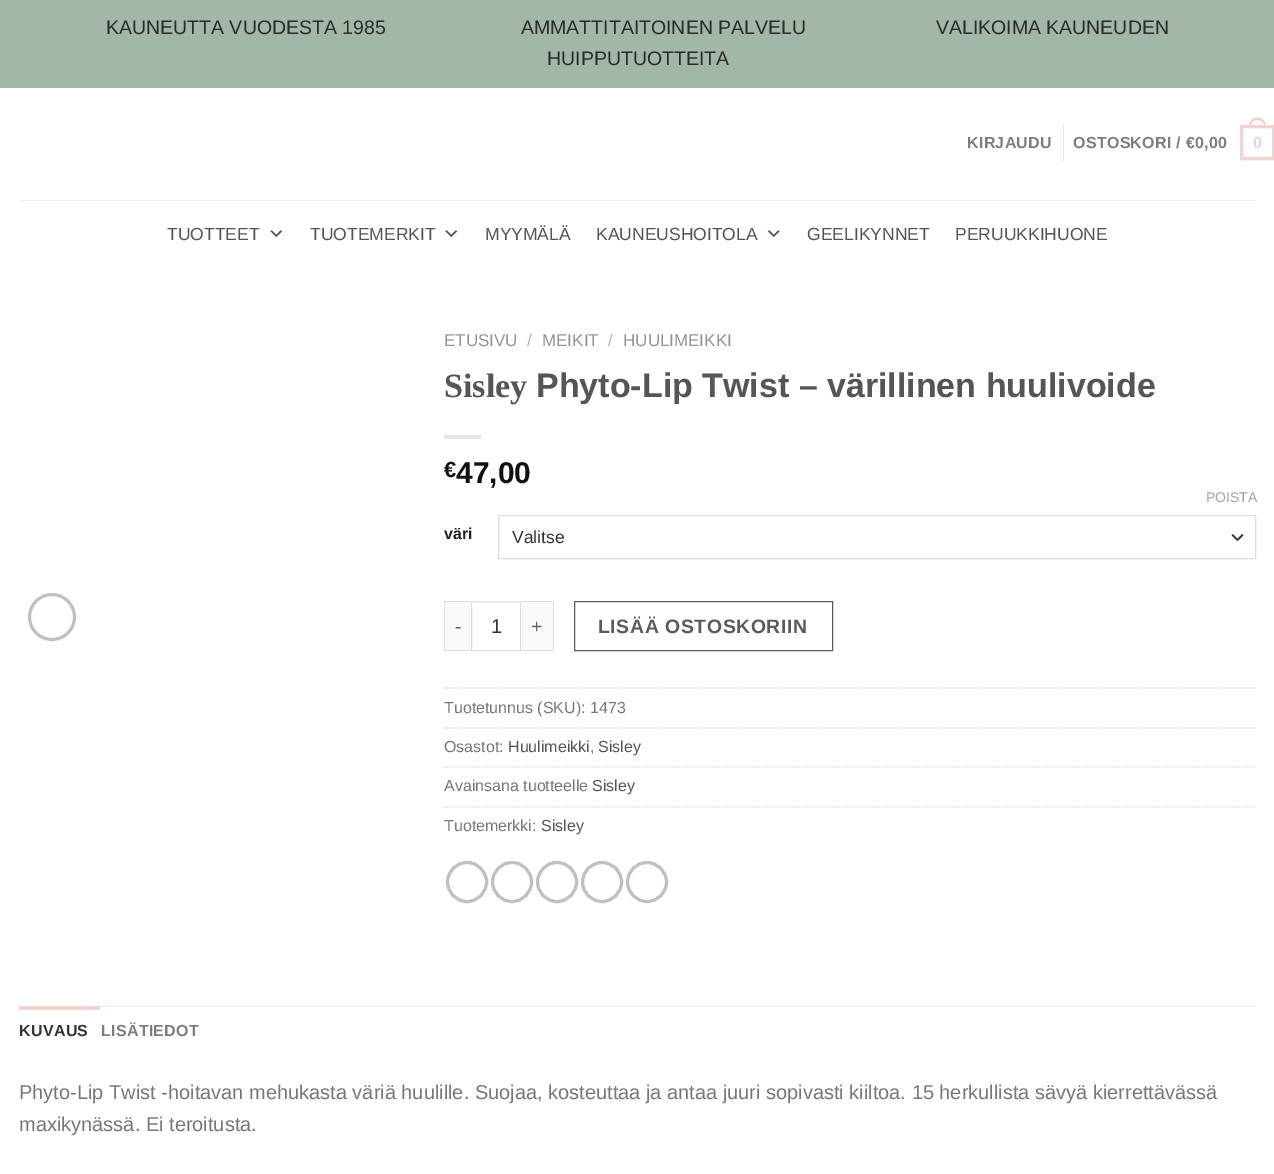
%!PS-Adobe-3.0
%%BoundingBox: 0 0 1274 1174
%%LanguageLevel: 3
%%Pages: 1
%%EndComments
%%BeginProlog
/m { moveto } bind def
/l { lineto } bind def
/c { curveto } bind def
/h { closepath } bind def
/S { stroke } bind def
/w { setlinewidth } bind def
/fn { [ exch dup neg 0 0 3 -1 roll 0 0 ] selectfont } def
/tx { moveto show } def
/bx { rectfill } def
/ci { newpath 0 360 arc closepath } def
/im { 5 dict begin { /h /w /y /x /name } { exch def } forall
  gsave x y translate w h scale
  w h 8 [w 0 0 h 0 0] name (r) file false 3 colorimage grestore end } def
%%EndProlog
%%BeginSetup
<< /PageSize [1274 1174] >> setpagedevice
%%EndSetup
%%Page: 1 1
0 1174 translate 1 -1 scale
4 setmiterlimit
1 setgray
0 0 1274 1174 bx
0.639 0.718 0.663 setrgbcolor
0 0 1274 88 bx
/LiberationSans-Regular 19.5 fn
0.157 0.173 0.161 setrgbcolor
(KAUNEUTTA VUODESTA 1985                         AMMATTITAITOINEN PALVELU                        VALIKOIMA KAUNEUDEN) 106 34 tx
(HUIPPUTUOTTEITA) 547 65 tx
/LiberationSans-Bold 16 fn
0.49 setgray
967 148 m 0.3 0 (KIRJAUDU) ashow
0.902 setgray
1063 124 1 37 bx
0.49 setgray
1073 148 m 0.3 0 (OSTOSKORI / €0,00) ashow
0.953 0.824 0.824 setrgbcolor
3 w
1241.5 126.5 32 32 rectstroke
1257.5 117.5 m 1263.5 117.5 1266 122 1266 127.5 c 1249 127.5 l 1249 122 1251.5 117.5 1257.5 117.5 c h 1257.5 120 m 1262 120 1264 123.5 1264 127.5 c 1251 127.5 l 1251 123.5 1253 120 1257.5 120 c h eofill
1253 148 m 0.3 0 (0) ashow
0.945 setgray
19 200 1237 1 bx
/LiberationSans-Regular 17.5 fn
0.333 setgray
(TUOTTEET) 167 240 tx
(image0.raw) 270 230 13 8 im
(TUOTEMERKIT) 310 240 tx
(image0.raw) 445 230 13 8 im
(MYYMÄLÄ) 485 240 tx
(KAUNEUSHOITOLA) 596 240 tx
(image1.raw) 767 230 13 8 im
(GEELIKYNNET) 807 240 tx
(PERUUKKIHUONE) 955 240 tx
0.753 setgray
52 617 22.5 ci S
/LiberationSans-Regular 17 fn
0.58 setgray
(ETUSIVU) 444 346 tx
0.698 setgray
(/) 527 346 tx
0.58 setgray
(MEIKIT) 542 346 tx
0.698 setgray
(/) 608 346 tx
0.58 setgray
(HUULIMEIKKI) 623 346 tx
/LiberationSerif-Bold 34 fn
0.333 setgray
(Sisley) 444 397 tx
/LiberationSans-Bold 34 fn
(Phyto-Lip Twist – värillinen huulivoide) 536 397 tx
0.902 setgray
444 435 37 4 bx
/LiberationSans-Bold 22 fn
0.067 setgray
(€) 444 477 tx
/LiberationSans-Bold 30 fn
(47,00) 456 483 tx
/LiberationSans-Bold 16 fn
0.133 setgray
(väri) 444 539 tx
/LiberationSans-Regular 14 fn
0.639 setgray
(POISTA) 1206 502 tx
0.2 setgray
1.7 w
1 setlinecap
1 setlinejoin
1232.5 535 m 1237.5 540 l 1242.5 535 l S
0.867 setgray
1 w
0 setlinecap
0 setlinejoin
498.5 515.5 757 43 rectstroke
/LiberationSans-Regular 17.5 fn
0.2 setgray
(Valitse) 512 543 tx
0.976 setgray
445 602 26 48 bx
0.867 setgray
444 601 27 1 bx
444 650 27 1 bx
444 601 1 50 bx
/LiberationSans-Regular 19.4 fn
0.4 setgray
455 633 m 0.6 0 (-) ashow
0.867 setgray
471.5 601.5 49 49 rectstroke
/LiberationSans-Regular 20 fn
0.2 setgray
(1) 491 633 tx
0.976 setgray
521 602 32 48 bx
0.867 setgray
521 601 33 1 bx
553 601 1 50 bx
521 650 33 1 bx
/LiberationSans-Regular 19.4 fn
0.4 setgray
531 633 m 0.6 0 (+) ashow
0.357 setgray
574.5 601.5 258 49 rectstroke
/LiberationSans-Bold 19.4 fn
598 633 m 0.6 0 (LISÄÄ OSTOSKORIIN) ashow
0.867 setgray
1.2 w
[1.25 1.25] 0 setdash
444 688 m 1256 688 l S
/LiberationSans-Regular 16 fn
0.467 setgray
(Tuotetunnus \(SKU\): 1473) 444 713 tx
0.867 setgray
444 728 m 1256 728 l S
0.467 setgray
(Osastot:) 444 752 tx
0.333 setgray
(Huulimeikki) 508 752 tx
0.467 setgray
(,) 590 752 tx
0.333 setgray
(Sisley) 598 752 tx
0.867 setgray
444 767 m 1256 767 l S
0.467 setgray
(Avainsana tuotteelle) 444 791 tx
0.333 setgray
(Sisley) 592 791 tx
0.867 setgray
444 807 m 1256 807 l S
0.467 setgray
(Tuotemerkki:) 444 831 tx
0.333 setgray
(Sisley) 541 831 tx
0.753 setgray
3 w
[] 0 setdash
467 882 19.5 ci S
512 882 19.5 ci S
557 882 19.5 ci S
602 882 19.5 ci S
647 882 19.5 ci S
0.925 setgray
100 1006 1156 1 bx
0.953 0.824 0.824 setrgbcolor
19 1006 81 4 bx
/LiberationSans-Bold 16 fn
0.2 setgray
19 1036 m 0.3 0 (KUVAUS) ashow
0.49 setgray
101 1036 m 0.3 0 (LISÄTIEDOT) ashow
/LiberationSans-Regular 20 fn
0.467 setgray
(Phyto-Lip Twist -hoitavan mehukasta väriä huulille. Suojaa, kosteuttaa ja antaa juuri sopivasti kiiltoa. 15 herkullista sävyä kierrettävässä) 19 1099 tx
(maxikynässä. Ei teroitusta.) 19 1131 tx
showpage
%%EOF
